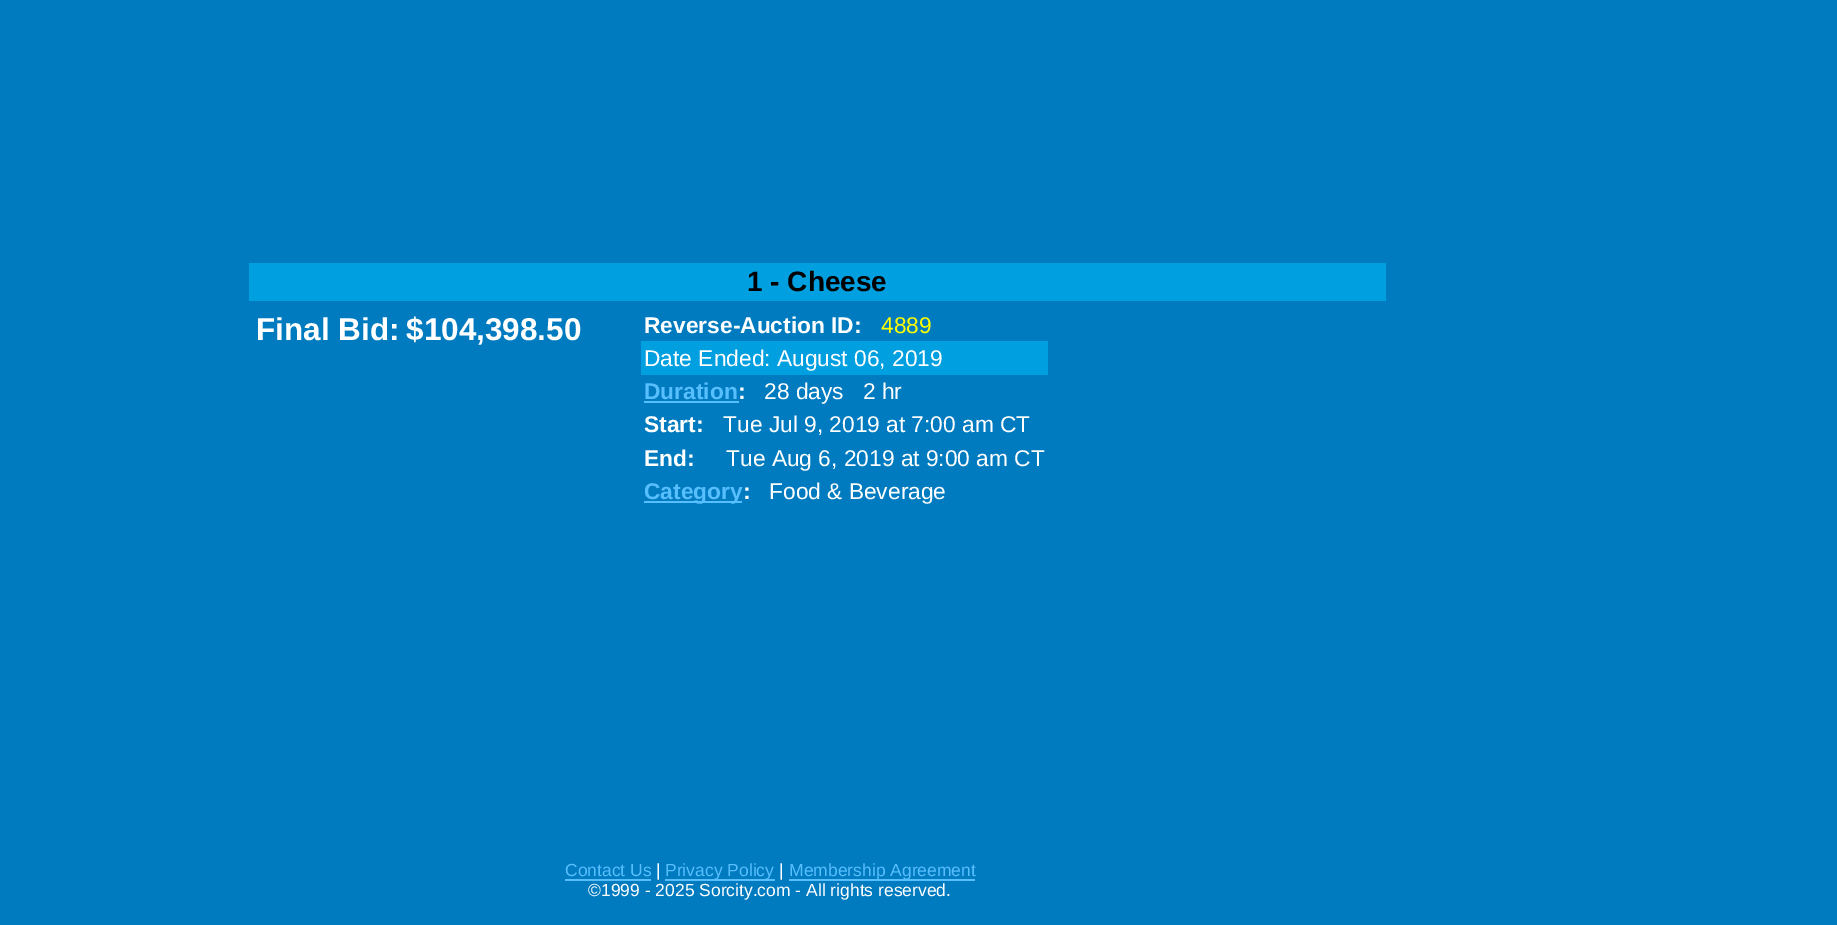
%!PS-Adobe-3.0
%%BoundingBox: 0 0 1837 925
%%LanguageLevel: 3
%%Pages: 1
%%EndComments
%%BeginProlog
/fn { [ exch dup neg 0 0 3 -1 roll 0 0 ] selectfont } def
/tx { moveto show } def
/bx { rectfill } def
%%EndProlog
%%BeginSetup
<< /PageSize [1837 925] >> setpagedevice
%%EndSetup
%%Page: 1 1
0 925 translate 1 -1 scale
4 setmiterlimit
0 0.482 0.749 setrgbcolor
0 0 1837 925 bx
0 0.624 0.878 setrgbcolor
249 263 1137 38 bx
/LiberationSans-Bold 28 fn
0 setgray
(1 - Cheese) 747 291 tx
/LiberationSans-Bold 31.5 fn
1 setgray
(Final Bid:) 256 340 tx
($104,398.50) 406 340 tx
/LiberationSans-Bold 22.75 fn
(Reverse-Auction ID:) 644 333 tx
/LiberationSans-Regular 22.75 fn
1 1 0 setrgbcolor
(4889) 881 333 tx
0 0.624 0.878 setrgbcolor
641 341 407 34 bx
1 setgray
(Date Ended: August 06, 2019) 644 366 tx
/LiberationSans-Bold 22.75 fn
0.345 0.749 1 setrgbcolor
(Duration) 644 399 tx
1 setgray
(:) 738 399 tx
0.345 0.749 1 setrgbcolor
644 401 95 2 bx
/LiberationSans-Regular 22.75 fn
1 setgray
(28 days   2 hr) 764 399 tx
/LiberationSans-Bold 22.75 fn
(Start:) 644 432 tx
/LiberationSans-Regular 22.75 fn
(Tue Jul 9, 2019 at 7:00 am CT) 723 432 tx
/LiberationSans-Bold 22.75 fn
(End:) 644 466 tx
/LiberationSans-Regular 22.75 fn
(Tue Aug 6, 2019 at 9:00 am CT) 726 466 tx
0.345 0.749 1 setrgbcolor
644 501 98 2 bx
/LiberationSans-Bold 22.75 fn
(Category) 644 499 tx
1 setgray
(:) 743 499 tx
/LiberationSans-Regular 22.75 fn
(Food & Beverage) 769 499 tx
/LiberationSans-Regular 17.5 fn
0.345 0.749 1 setrgbcolor
(Contact Us) 565 876 tx
565 879 86 2 bx
1 setgray
(|) 656 876 tx
0.345 0.749 1 setrgbcolor
665 879 110 2 bx
(Privacy Policy) 665 876 tx
1 setgray
(|) 779 876 tx
0.345 0.749 1 setrgbcolor
789 879 186 2 bx
(Membership Agreement) 789 876 tx
1 setgray
(©1999 - 2025 Sorcity.com - All rights reserved.) 588 896 tx
showpage
%%EOF
